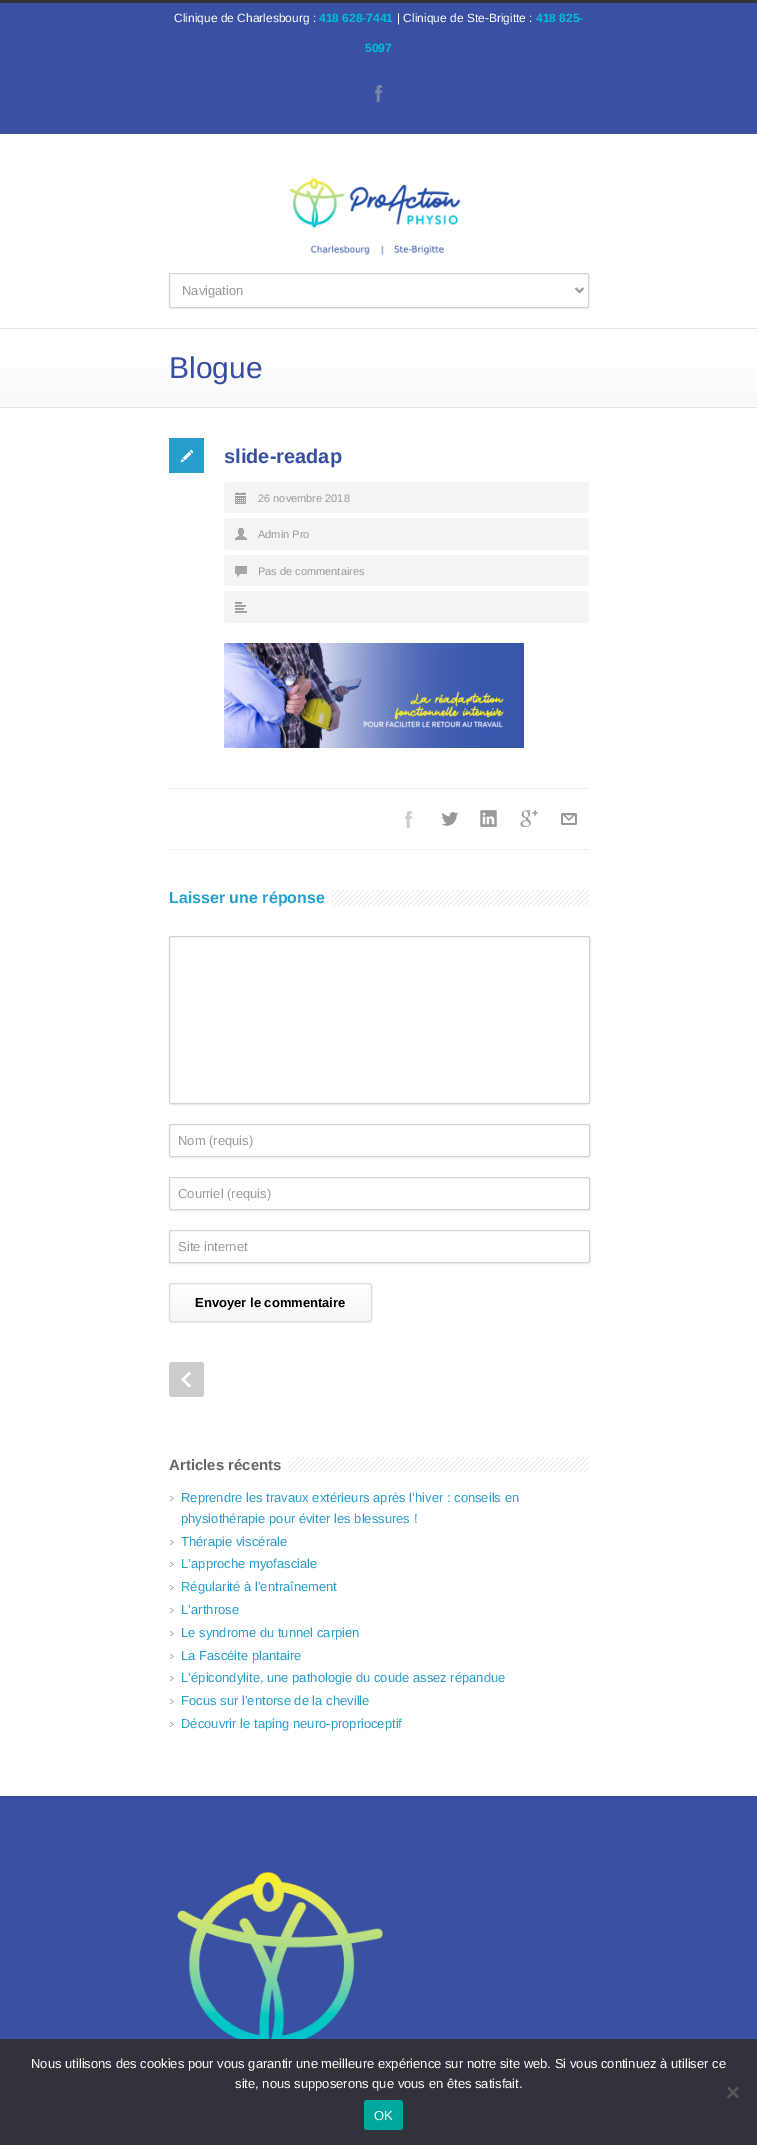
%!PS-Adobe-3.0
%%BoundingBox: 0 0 757 2145
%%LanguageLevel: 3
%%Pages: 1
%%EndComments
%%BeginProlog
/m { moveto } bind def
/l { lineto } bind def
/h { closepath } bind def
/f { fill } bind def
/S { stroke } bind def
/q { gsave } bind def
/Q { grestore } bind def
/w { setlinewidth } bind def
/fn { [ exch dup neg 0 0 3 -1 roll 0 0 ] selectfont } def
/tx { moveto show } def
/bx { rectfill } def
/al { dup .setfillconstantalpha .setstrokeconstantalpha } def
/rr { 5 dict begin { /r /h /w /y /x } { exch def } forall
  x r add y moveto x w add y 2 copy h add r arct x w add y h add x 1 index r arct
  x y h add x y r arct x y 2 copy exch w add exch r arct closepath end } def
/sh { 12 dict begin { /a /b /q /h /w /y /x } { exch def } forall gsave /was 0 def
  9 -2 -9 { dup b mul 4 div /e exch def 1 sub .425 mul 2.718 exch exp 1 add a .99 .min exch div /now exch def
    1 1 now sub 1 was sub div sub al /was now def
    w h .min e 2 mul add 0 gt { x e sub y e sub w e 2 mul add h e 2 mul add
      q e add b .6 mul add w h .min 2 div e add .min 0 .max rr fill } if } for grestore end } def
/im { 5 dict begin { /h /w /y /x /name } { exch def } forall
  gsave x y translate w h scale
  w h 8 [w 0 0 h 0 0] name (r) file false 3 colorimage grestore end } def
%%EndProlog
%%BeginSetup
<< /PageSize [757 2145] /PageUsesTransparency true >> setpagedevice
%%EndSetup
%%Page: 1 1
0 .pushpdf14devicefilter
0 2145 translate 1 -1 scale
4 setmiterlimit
1 setgray
0 0 757 2145 bx
0.2 setgray
0 0 757 3 bx
0.224 0.314 0.639 setrgbcolor
0 3 757 131 bx
/LiberationSans-Regular 12 fn
1 setgray
(Clinique de Charlesbourg :) 174 22 tx
/LiberationSans-Bold 12 fn
0 0.749 0.863 setrgbcolor
(418 628-7441) 319 22 tx
/LiberationSans-Regular 12 fn
1 setgray
(| Clinique de Ste-Brigitte :) 397 22 tx
/LiberationSans-Bold 12 fn
0 0.749 0.863 setrgbcolor
(418 825-) 536 22 tx
(5097) 365 52 tx
(image0.raw) 375 85 7 17 im
(image1.raw) 289 178 172 77 im
0.706 setgray
169 274 420 35 2 1 0.2 sh
1 setgray
169.5 273.5 419 34 1.5 rr q f Q
0.831 setgray
S
0.6 setgray
2 w
575.5 288 m 579.5 292 l 583.5 288 l S
/LiberationSans-Regular 13 fn
(Navigation) 182 295 tx
q 0 368 m 757 368 l 757 407 l 0 407 l h clip newpath
<< /ShadingType 2 /ColorSpace /DeviceRGB /Coords [379 407 379 329] /Extend [true true] /Function << /FunctionType 2 /Domain [0 1] /C0 [0.98 0.98 0.98] /C1 [1 1 1] /N 1 >> >> shfill Q
0.894 setgray
0 328 757 1 bx
0 407 757 1 bx
/LiberationSans-Regular 30 fn
0.216 0.306 0.635 setrgbcolor
(Blogue) 169 378 tx
0.157 0.616 0.8 setrgbcolor
169 438 35 35 bx
(image2.raw) 180 449 13 14 im
/LiberationSans-Bold 20 fn
0.216 0.306 0.635 setrgbcolor
(slide-readap) 224 463 tx
0.957 setgray
224 482 365 31 3 rr f
(image3.raw) 235 492 11 12 im
/LiberationSans-Regular 11 fn
0.6 setgray
(26 novembre 2018) 258 502 tx
0.957 setgray
224 518 365 32 3 rr f
(image4.raw) 235 528 12 12 im
0.6 setgray
(Admin Pro) 258 538 tx
0.957 setgray
224 555 365 31 3 rr f
(image5.raw) 235 566 12 11 im
0.6 setgray
(Pas de commentaires) 258 575 tx
0.957 setgray
224 591 365 32 3 rr f
(image6.raw) 235 602 12 11 im
(image7.raw) 224 643 300 105 im
0.937 setgray
169 788 420 1 bx
169 849 420 1 bx
(image8.raw) 405 811 7 17 im
(image9.raw) 441 812 18 14 im
(image10.raw) 480 810 17 17 im
(image11.raw) 520 810 18 17 im
(image12.raw) 561 813 16 12 im
(image13.raw) 331 890 258 16 im
/LiberationSans-Bold 16 fn
0.133 0.624 0.82 setrgbcolor
(Laisser une réponse) 169 903 tx
0.706 setgray
169 937 421 168 2 1 0.2 sh
1 setgray
169.5 936.5 420 167 1.5 rr q f Q
0.831 setgray
1 w
S
0.706 setgray
169 1125 421 33 2 1 0.2 sh
1 setgray
169.5 1124.5 420 32 1.5 rr q f Q
0.831 setgray
S
/LiberationSans-Regular 13 fn
0.6 setgray
(Nom \(requis\)) 178 1145 tx
0.706 setgray
169 1178 421 33 2 1 0.2 sh
1 setgray
169.5 1177.5 420 32 1.5 rr q f Q
0.831 setgray
S
0.6 setgray
(Courriel \(requis\)) 178 1198 tx
0.706 setgray
169 1231 421 33 2 1 0.2 sh
1 setgray
169.5 1230.5 420 32 1.5 rr q f Q
0.831 setgray
S
0.6 setgray
(Site internet) 178 1251 tx
0.706 setgray
169 1284 203 39 3 0.5 0.2 sh
q
169 1283 203 39 3 rr clip newpath
q 169 1284 m 372 1284 l 372 1321 l 169 1321 l h clip newpath
<< /ShadingType 2 /ColorSpace /DeviceRGB /Coords [271 1321 271 1284] /Extend [true true] /Function << /FunctionType 2 /Domain [0 1] /C0 [0.969 0.969 0.969] /C1 [1 1 1] /N 1 >> >> shfill Q
Q
0.867 setgray
169.5 1283.5 202 38 2.5 rr S
/LiberationSans-Bold 13 fn
0 setgray
(Envoyer le commentaire) 195 1307 tx
0.8 setgray
169 1362 35 35 3 rr f
(image14.raw) 181 1372 10 15 im
(image15.raw) 288 1457 301 15 im
/LiberationSans-Bold 15 fn
0.4 setgray
(Articles récents) 169 1470 tx
(image16.raw) 170 1496 4 5 im
/LiberationSans-Regular 13 fn
0.157 0.616 0.8 setrgbcolor
(Reprendre les travaux extérieurs après l’hiver : conseils en) 181 1502 tx
(physiothérapie pour éviter les blessures !) 181 1523 tx
(image16.raw) 170 1540 4 5 im
(Thérapie viscérale) 181 1546 tx
(image16.raw) 170 1562 4 5 im
(L’approche myofasciale) 181 1568 tx
(image16.raw) 170 1585 4 5 im
(Régularité à l’entraînement) 181 1591 tx
(image16.raw) 170 1608 4 5 im
(L’arthrose) 181 1614 tx
(image16.raw) 170 1631 4 5 im
(Le syndrome du tunnel carpien) 181 1637 tx
(image16.raw) 170 1654 4 5 im
(La Fascéite plantaire) 181 1660 tx
(image16.raw) 170 1676 4 5 im
(L’épicondylite, une pathologie du coude assez répandue) 181 1682 tx
(image16.raw) 170 1699 4 5 im
(Focus sur l’entorse de la cheville) 181 1705 tx
(image16.raw) 170 1722 4 5 im
(Découvrir le taping neuro-proprioceptif) 181 1728 tx
0.224 0.314 0.639 setrgbcolor
0 1796 757 243 bx
(image17.raw) 177 1871 206 168 im
0.196 0.196 0.227 setrgbcolor
0 2039 757 106 bx
1 setgray
(Nous utilisons des cookies pour vous garantir une meilleure expérience sur notre site web. Si vous continuez à utiliser ce) 31 2068 tx
(site, nous supposerons que vous en êtes satisfait.) 235 2088 tx
0.349 0.349 0.365 setrgbcolor
737.5 2086.5 m 739 2088 l 728.5 2098.5 l 727 2097 l h f
727 2088 m 728.5 2086.5 l 739 2097 l 737.5 2098.5 l h f
0 0.663 0.616 setrgbcolor
364 2100 39 30 3 rr f
1 setgray
(OK) 374 2120 tx
.poppdf14devicefilter showpage
%%EOF
